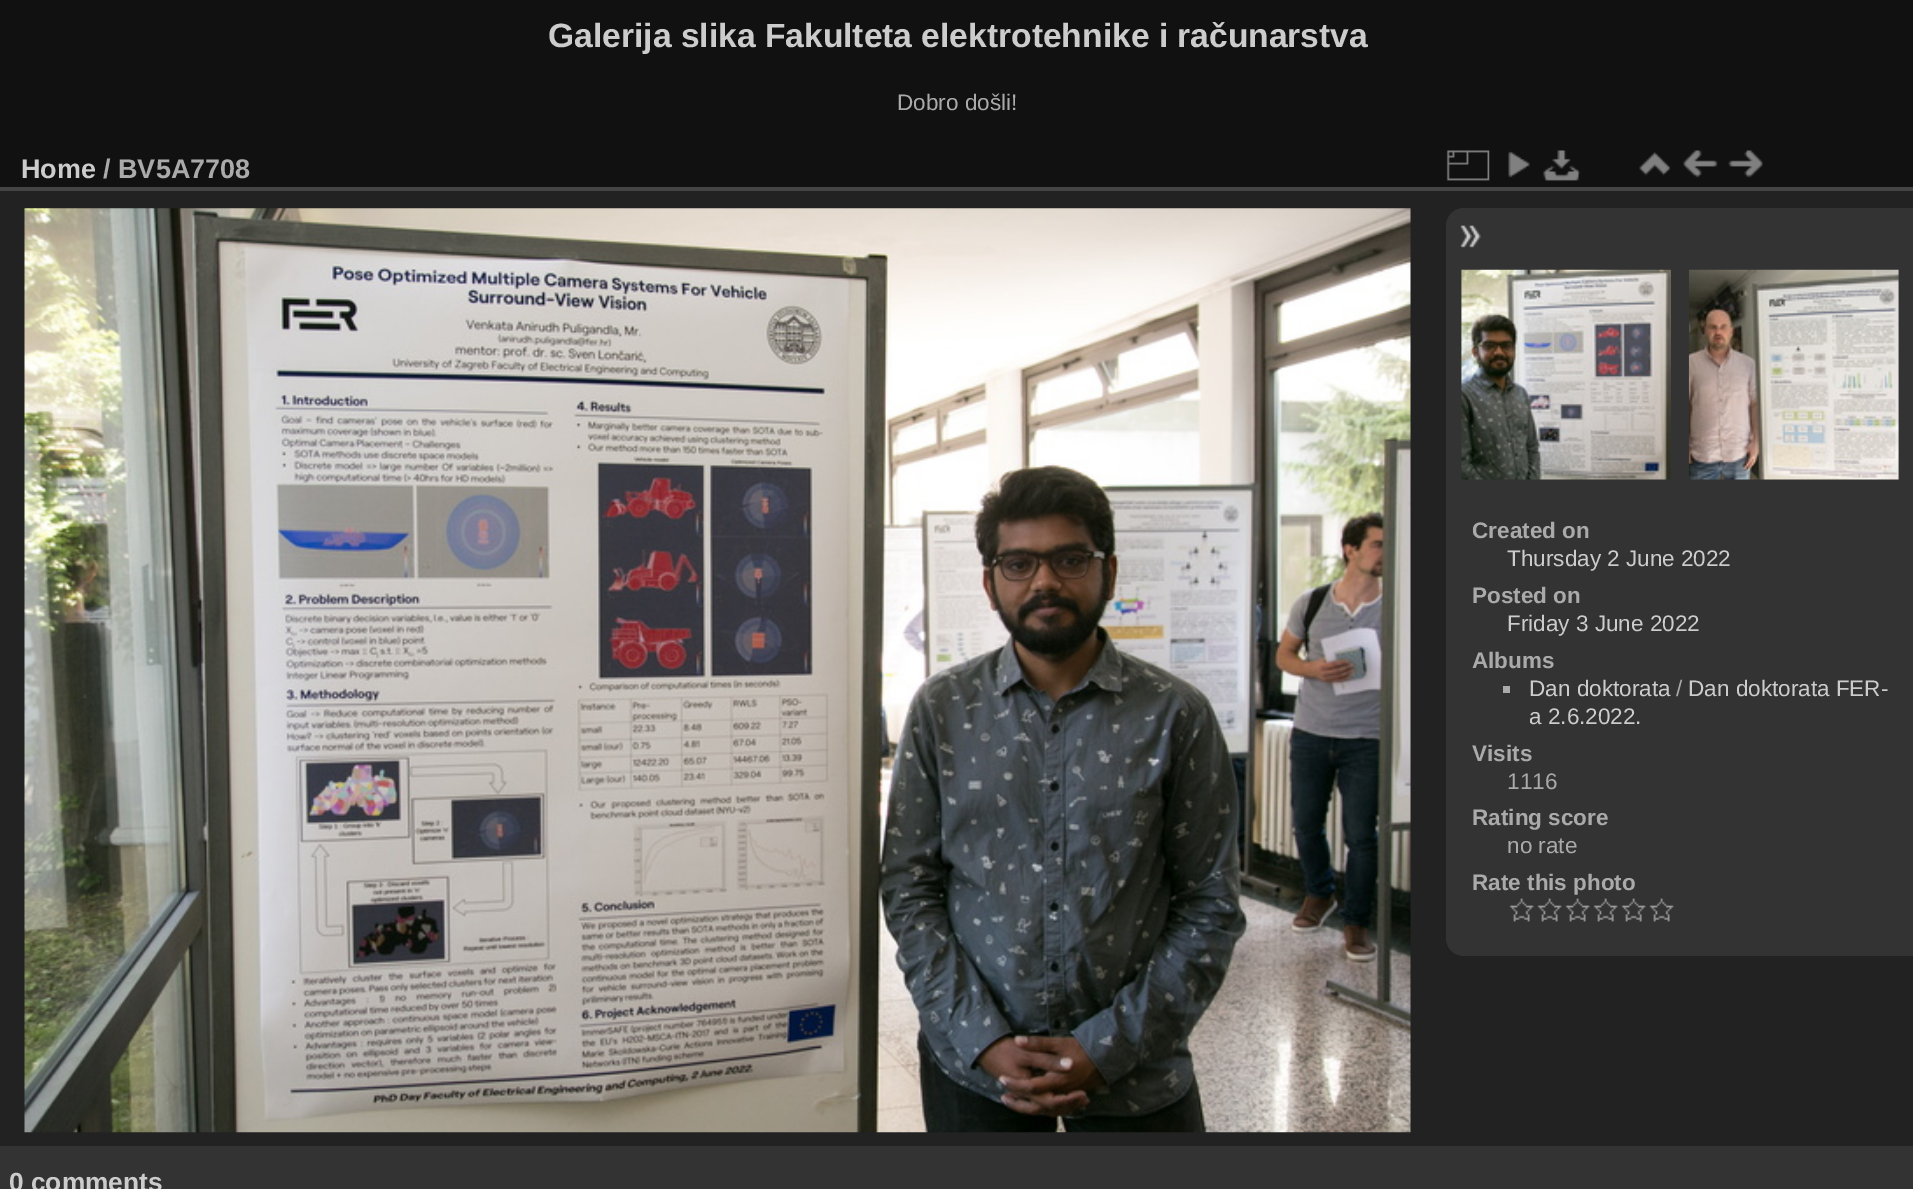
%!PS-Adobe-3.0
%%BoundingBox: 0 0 1913 1189
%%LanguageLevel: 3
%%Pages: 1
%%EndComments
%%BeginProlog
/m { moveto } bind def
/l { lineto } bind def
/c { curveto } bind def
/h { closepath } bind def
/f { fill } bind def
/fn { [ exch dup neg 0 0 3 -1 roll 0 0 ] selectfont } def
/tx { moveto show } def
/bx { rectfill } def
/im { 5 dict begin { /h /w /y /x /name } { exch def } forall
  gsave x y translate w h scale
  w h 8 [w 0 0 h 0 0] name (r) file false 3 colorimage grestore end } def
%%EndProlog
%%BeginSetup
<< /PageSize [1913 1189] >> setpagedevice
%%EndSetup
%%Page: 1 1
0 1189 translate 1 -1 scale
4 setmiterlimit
0.067 setgray
0 0 1913 1189 bx
/LiberationSans-Bold 33.6 fn
0.8 setgray
(Galerija slika Fakulteta elektrotehnike i računarstva) 548 47 tx
/LiberationSans-Regular 22.5 fn
0.667 setgray
(Dobro došli!) 897 110 tx
0.133 setgray
0 191 1913 955 bx
0.267 setgray
0 187 1913 4 bx
/LiberationSans-Bold 27 fn
0.8 setgray
(Home) 21 178 tx
0.667 setgray
(/ BV5A7708) 103 178 tx
(image0.raw) 1446 150 44 31 im
(image1.raw) 1508 151 22 27 im
(image2.raw) 1543 150 38 31 im
(image3.raw) 1639 152 31 24 im
(image4.raw) 1683 150 35 28 im
(image5.raw) 1728 150 35 28 im
(image6.raw) 24 208 1387 925 im
0.2 setgray
1464 208 m 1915 208 l 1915 956 l 1464 956 l 1454 956 1446 948 1446 938 c 1446 226 l 1446 216 1454 208 1464 208 c h f
(image7.raw) 1460 225 21 23 im
(image8.raw) 1461 269 210 211 im
(image9.raw) 1688 269 211 211 im
/LiberationSans-Bold 22.5 fn
0.667 setgray
(Created on) 1472 538 tx
/LiberationSans-Regular 22.5 fn
0.8 setgray
(Thursday 2 June 2022) 1507 566 tx
/LiberationSans-Bold 22.5 fn
0.667 setgray
(Posted on) 1472 603 tx
/LiberationSans-Regular 22.5 fn
0.8 setgray
(Friday 3 June 2022) 1507 631 tx
/LiberationSans-Bold 22.5 fn
0.667 setgray
(Albums) 1472 668 tx
1503 686 7 7 bx
/LiberationSans-Regular 22.5 fn
0.8 setgray
(Dan doktorata) 1529 696 tx
0.667 setgray
(/) 1676 696 tx
0.8 setgray
(Dan doktorata FER-) 1688 696 tx
(a 2.6.2022.) 1529 724 tx
/LiberationSans-Bold 22.5 fn
0.667 setgray
(Visits) 1472 761 tx
/LiberationSans-Regular 22.5 fn
(1116) 1507 789 tx
/LiberationSans-Bold 22.5 fn
(Rating score) 1472 825 tx
/LiberationSans-Regular 22.5 fn
(no rate) 1507 853 tx
/LiberationSans-Bold 22.5 fn
(Rate this photo) 1472 890 tx
(image10.raw) 1509 898 25 24 im
(image10.raw) 1537 898 25 24 im
(image10.raw) 1565 898 25 24 im
(image11.raw) 1593 898 25 24 im
(image11.raw) 1621 898 25 24 im
(image10.raw) 1649 898 25 24 im
0.2 setgray
0 1146 1913 43 bx
/LiberationSans-Bold 26.25 fn
0.8 setgray
(0 comments) 9 1191 tx
showpage
%%EOF
